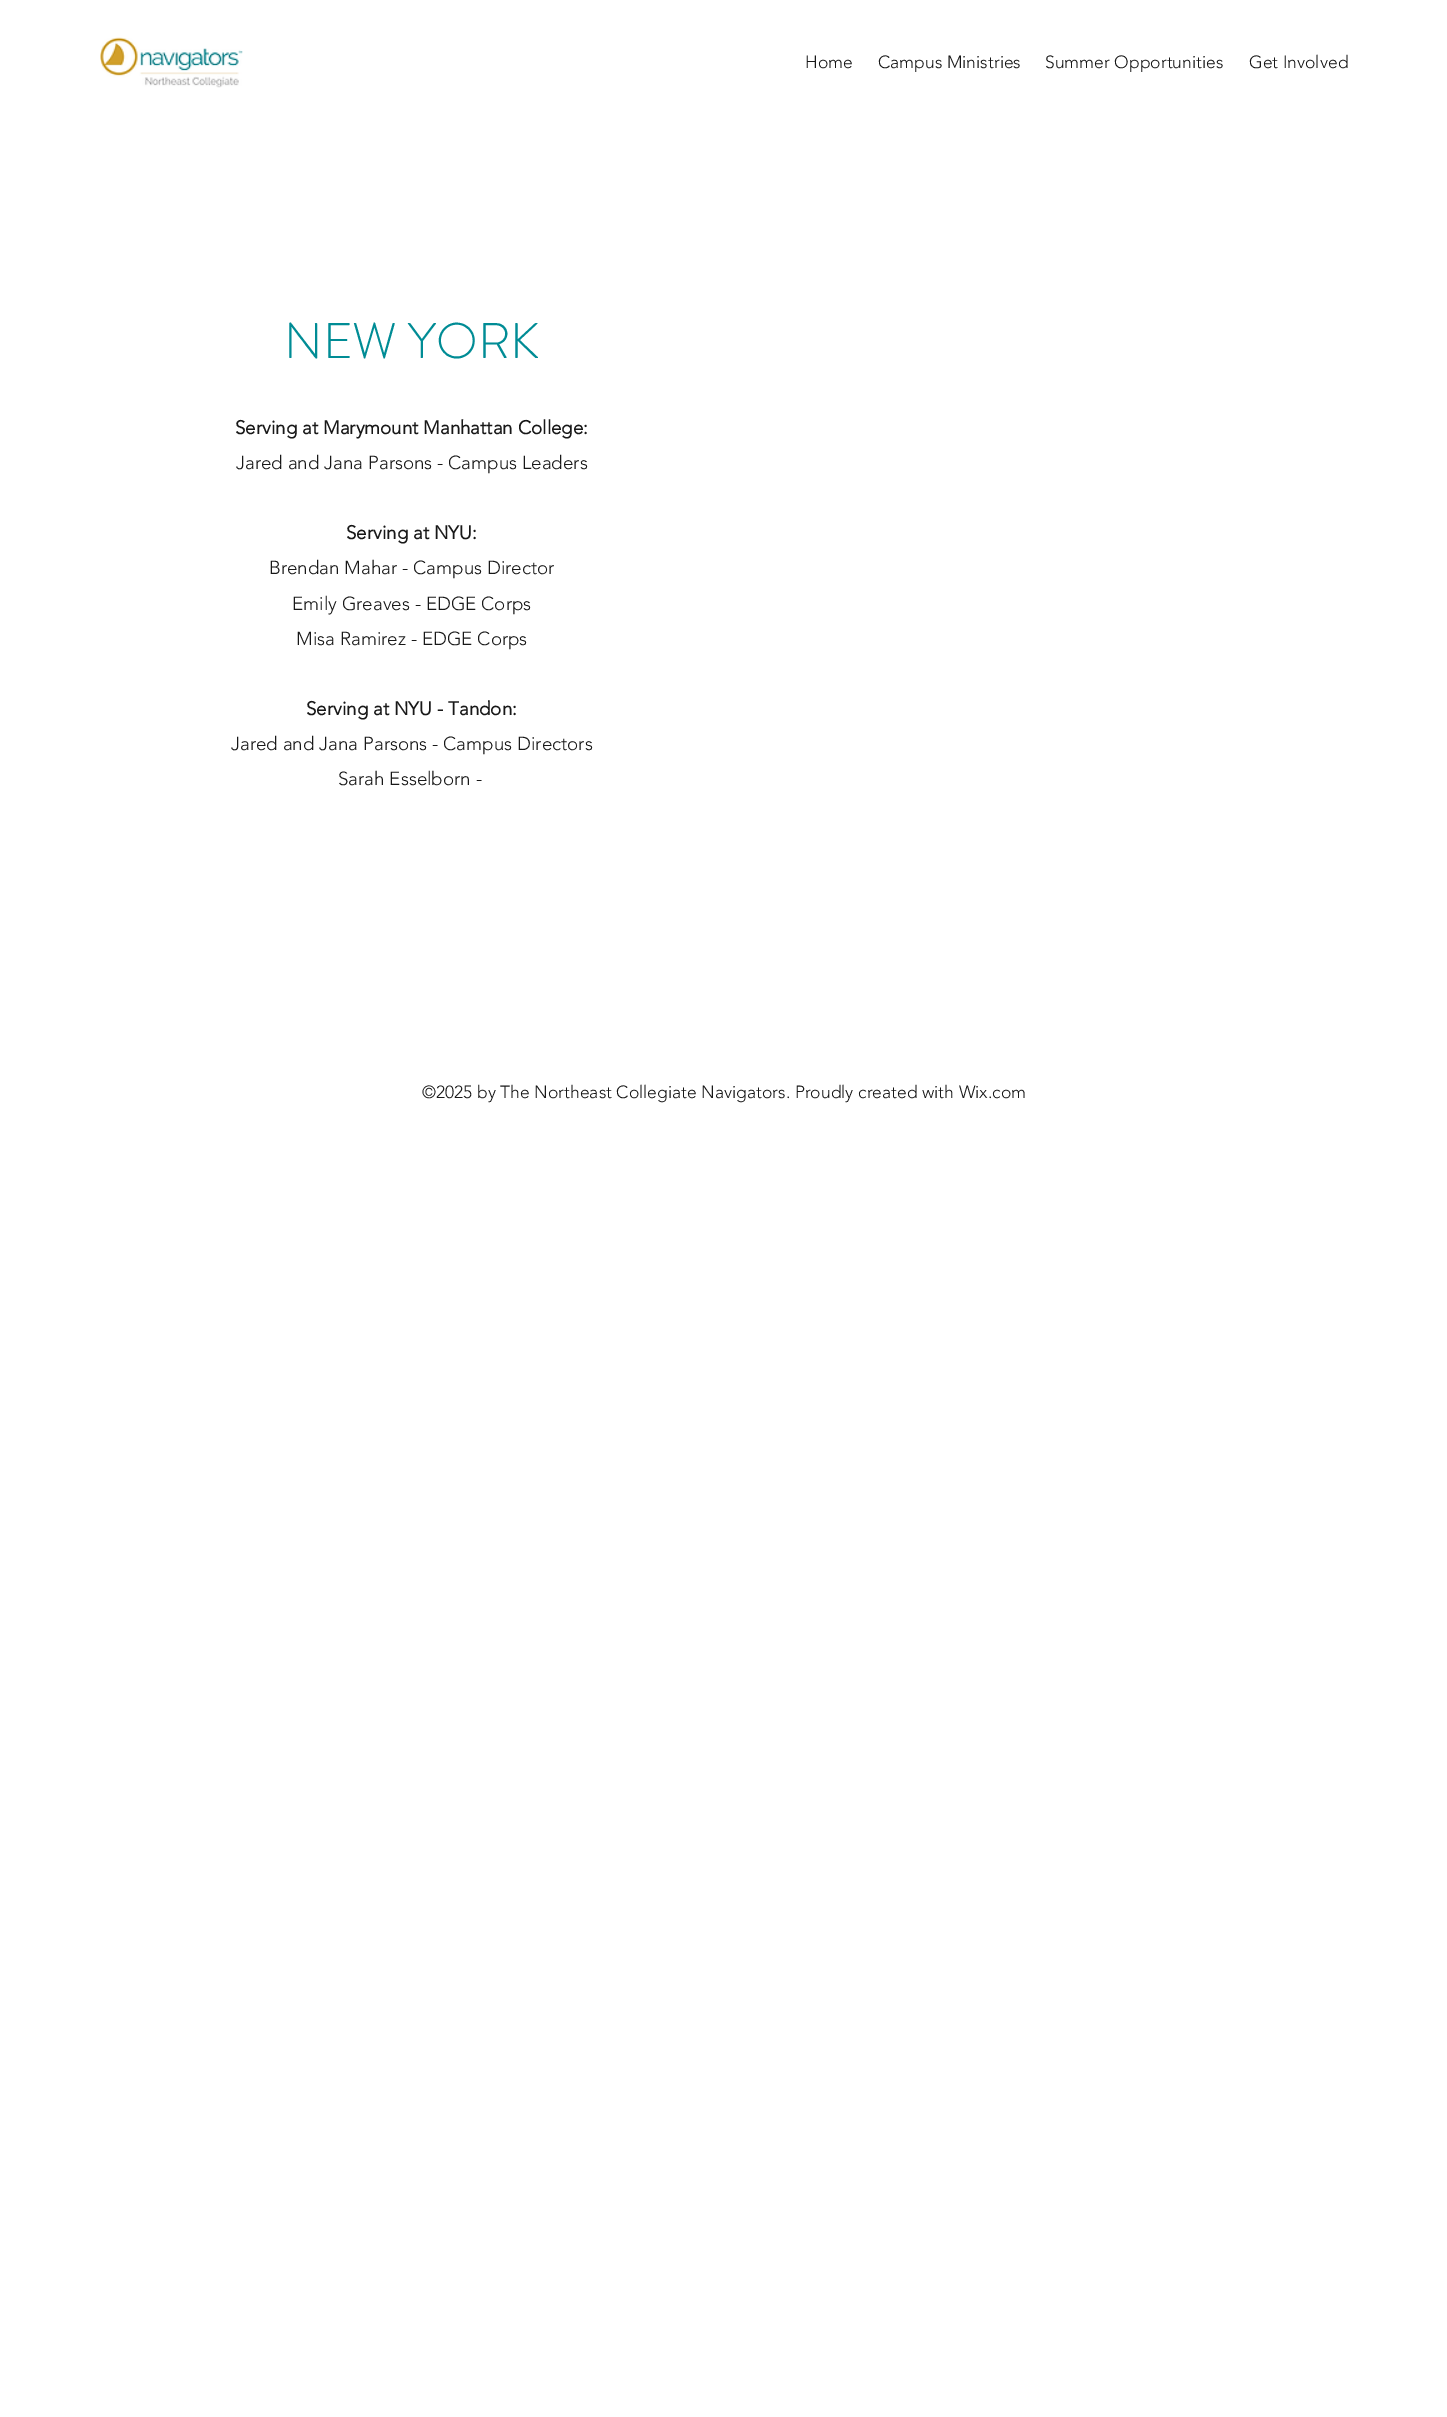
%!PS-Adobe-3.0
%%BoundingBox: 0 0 1447 2417
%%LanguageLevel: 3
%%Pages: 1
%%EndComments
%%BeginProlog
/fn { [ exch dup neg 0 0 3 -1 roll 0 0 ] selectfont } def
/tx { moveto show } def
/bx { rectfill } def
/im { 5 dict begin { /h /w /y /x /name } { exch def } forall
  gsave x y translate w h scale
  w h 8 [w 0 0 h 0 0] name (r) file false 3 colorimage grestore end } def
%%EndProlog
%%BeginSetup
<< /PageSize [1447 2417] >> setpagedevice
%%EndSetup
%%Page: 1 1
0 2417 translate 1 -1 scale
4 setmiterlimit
1 setgray
0 0 1447 2417 bx
(image0.raw) 100 37 143 51 im
/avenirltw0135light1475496-Light 17.5 fn
0.094 setgray
(Home) 805 68 tx
(Campus Ministries) 878 68 tx
(Summer Opportunities) 1045 68 tx
(Get Involved) 1249 68 tx
/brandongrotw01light-Light 50 fn
0 0.549 0.584 setrgbcolor
(NEW YORK) 284 358 tx
/avenirltw0135light1475496-Bold 18.75 fn
0.094 setgray
(Serving at Marymount Manhattan College:) 235 434 tx
/avenirltw0135light1475496-Light 18.75 fn
(Jared and Jana Parsons - Campus Leaders) 236 469 tx
/avenirltw0135light1475496-Bold 18.75 fn
(Serving at NYU:) 346 539 tx
/avenirltw0135light1475496-Light 18.75 fn
(Brendan Mahar - Campus Director) 269 574 tx
(Emily Greaves - EDGE Corps) 292 610 tx
(Misa Ramirez - EDGE Corps) 296 645 tx
/avenirltw0135light1475496-Bold 18.75 fn
(Serving at NYU - Tandon:) 306 715 tx
/avenirltw0135light1475496-Light 18.75 fn
(Jared and Jana Parsons - Campus Directors) 231 750 tx
(Sarah Esselborn -) 338 785 tx
/avenirltw0135light1475496-Light 17.5 fn
(©2025 by The Northeast Collegiate Navigators. Proudly created with Wix.com) 422 1098 tx
showpage
%%EOF
